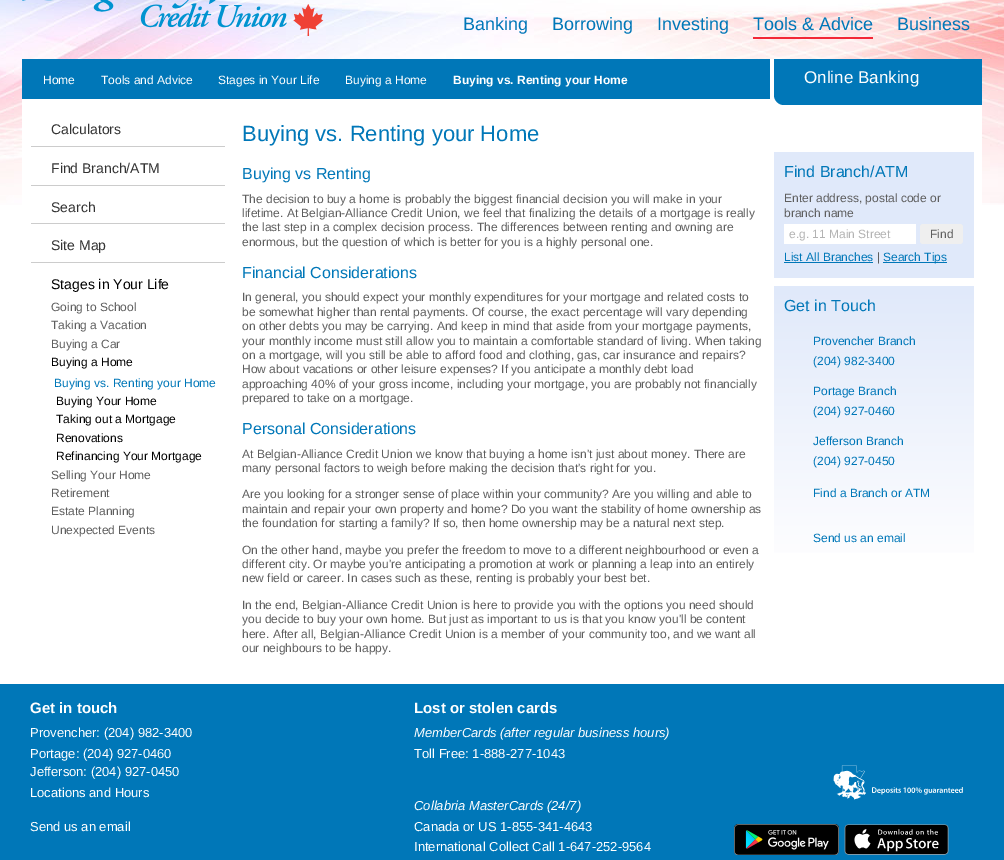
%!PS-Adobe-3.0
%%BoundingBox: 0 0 1004 860
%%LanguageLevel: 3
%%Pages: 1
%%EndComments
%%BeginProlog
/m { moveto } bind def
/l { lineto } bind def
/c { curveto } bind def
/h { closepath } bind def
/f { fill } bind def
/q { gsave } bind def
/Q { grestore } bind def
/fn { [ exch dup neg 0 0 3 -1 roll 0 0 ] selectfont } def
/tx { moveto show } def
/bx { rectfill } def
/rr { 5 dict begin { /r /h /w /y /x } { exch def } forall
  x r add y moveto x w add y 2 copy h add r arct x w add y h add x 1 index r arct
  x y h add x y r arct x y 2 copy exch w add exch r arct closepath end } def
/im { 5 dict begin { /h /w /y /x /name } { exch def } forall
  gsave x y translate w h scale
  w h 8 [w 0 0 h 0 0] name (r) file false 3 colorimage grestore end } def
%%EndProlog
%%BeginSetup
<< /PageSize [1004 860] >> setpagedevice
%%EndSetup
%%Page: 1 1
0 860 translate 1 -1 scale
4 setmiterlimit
1 setgray
0 0 1004 860 bx
(image0.raw) 0 0 1004 205 im
(image1.raw) 22 0 302 36 im
/LiberationSans-Regular 18 fn
0 0.467 0.722 setrgbcolor
(Banking) 463 30 tx
(Borrowing) 552 30 tx
(Investing) 657 30 tx
0.953 0.157 0.216 setrgbcolor
753 37 120 2 bx
0 0.467 0.722 setrgbcolor
(Tools & Advice) 753 30 tx
(Business) 897 30 tx
1 setgray
22 59 960 146 bx
0 0.467 0.722 setrgbcolor
22 59 748 40 bx
/LiberationSans-Regular 12 fn
1 setgray
(Home) 43 84 tx
(Tools and Advice) 101 84 tx
(Stages in Your Life) 218 84 tx
(Buying a Home) 345 84 tx
/LiberationSans-Bold 12 fn
(Buying vs. Renting your Home) 453 84 tx
0 0.467 0.722 setrgbcolor
774 59 m 982 59 l 982 105 l 784 105 l 778.5 105 774 100.5 774 95 c h f
/LiberationSans-Regular 17 fn
1 setgray
(Online Banking) 804 83 tx
0.878 0.914 0.98 setrgbcolor
774 152 200 126 bx
/LiberationSans-Regular 16 fn
0 0.467 0.722 setrgbcolor
(Find Branch/ATM) 784 177 tx
/LiberationSans-Regular 12 fn
0.369 setgray
(Enter address, postal code or) 784 202 tx
(branch name) 784 217 tx
1 setgray
784 224 132 20 bx
0.702 setgray
(e.g. 11 Main Street) 789 238 tx
0.937 setgray
920 224 43 20 3 rr f
0.369 setgray
(Find) 930 238 tx
0 0.467 0.722 setrgbcolor
(List All Branches) 784 261 tx
784 262 89 1 bx
0.369 setgray
(|) 877 261 tx
0 0.467 0.722 setrgbcolor
883 262 64 1 bx
(Search Tips) 883 261 tx
q 774 286 m 974 286 l 974 553 l 774 553 l h clip newpath
<< /ShadingType 2 /ColorSpace /DeviceRGB /Coords [874 286 874 576] /Extend [true true] /Function << /FunctionType 2 /Domain [0 1] /C0 [0.878 0.914 0.98] /C1 [1 1 1] /N 1 >> >> shfill Q
/LiberationSans-Regular 16 fn
(Get in Touch) 784 311 tx
/LiberationSans-Regular 12 fn
(Provencher Branch) 813 345 tx
(\(204\) 982-3400) 813 365 tx
(Portage Branch) 813 395 tx
(\(204\) 927-0460) 813 415 tx
(Jefferson Branch) 813 445 tx
(\(204\) 927-0450) 813 465 tx
(Find a Branch or ATM) 813 497 tx
(Send us an email) 813 542 tx
0.8 setgray
31 146 194 1 bx
/LiberationSans-Regular 14 fn
0.2 setgray
(Calculators) 51 134 tx
0.8 setgray
31 185 194 1 bx
0.2 setgray
(Find Branch/ATM) 51 173 tx
0.8 setgray
31 223 194 1 bx
0.2 setgray
(Search) 51 212 tx
0.8 setgray
31 262 194 1 bx
0.2 setgray
(Site Map) 51 250 tx
0 setgray
(Stages in Your Life) 51 289 tx
/LiberationSans-Regular 12 fn
0.369 setgray
(Going to School) 51 311 tx
(Taking a Vacation) 51 329 tx
(Buying a Car) 51 348 tx
0 setgray
(Buying a Home) 51 366 tx
0 0.467 0.722 setrgbcolor
(Buying vs. Renting your Home) 54 387 tx
0 setgray
(Buying Your Home) 56 405 tx
(Taking out a Mortgage) 56 423 tx
(Renovations) 56 442 tx
(Refinancing Your Mortgage) 56 460 tx
0.369 setgray
(Selling Your Home) 51 479 tx
(Retirement) 51 497 tx
(Estate Planning) 51 515 tx
(Unexpected Events) 51 534 tx
/LiberationSans-Regular 22 fn
0 0.467 0.722 setrgbcolor
(Buying vs. Renting your Home) 242 141 tx
/LiberationSans-Regular 16 fn
(Buying vs Renting) 242 179 tx
/LiberationSans-Regular 12 fn
0.369 setgray
(The decision to buy a home is probably the biggest financial decision you will make in your) 242 203 tx
(lifetime. At Belgian-Alliance Credit Union, we feel that finalizing the details of a mortgage is really) 242 217 tx
(the last step in a complex decision process. The differences between renting and owning are) 242 231 tx
(enormous, but the question of which is better for you is a highly personal one.) 242 246 tx
/LiberationSans-Regular 16 fn
0 0.467 0.722 setrgbcolor
(Financial Considerations) 242 278 tx
/LiberationSans-Regular 12 fn
0.369 setgray
(In general, you should expect your monthly expenditures for your mortgage and related costs to) 242 301 tx
(be somewhat higher than rental payments. Of course, the exact percentage will vary depending) 242 316 tx
(on other debts you may be carrying. And keep in mind that aside from your mortgage payments,) 242 330 tx
(your monthly income must still allow you to maintain a comfortable standard of living. When taking) 242 345 tx
(on a mortgage, will you still be able to afford food and clothing, gas, car insurance and repairs?) 242 359 tx
(How about vacations or other leisure expenses? If you anticipate a monthly debt load) 242 373 tx
(approaching 40% of your gross income, including your mortgage, you are probably not financially) 242 388 tx
(prepared to take on a mortgage.) 242 402 tx
/LiberationSans-Regular 16 fn
0 0.467 0.722 setrgbcolor
(Personal Considerations) 242 434 tx
/LiberationSans-Regular 12 fn
0.369 setgray
(At Belgian-Alliance Credit Union we know that buying a home isn't just about money. There are) 242 458 tx
(many personal factors to weigh before making the decision that's right for you.) 242 472 tx
(Are you looking for a stronger sense of place within your community? Are you willing and able to) 242 498 tx
(maintain and repair your own property and home? Do you want the stability of home ownership as) 242 513 tx
(the foundation for starting a family? If so, then home ownership may be a natural next step.) 242 527 tx
(On the other hand, maybe you prefer the freedom to move to a different neighbourhood or even a) 242 554 tx
(different city. Or maybe you're anticipating a promotion at work or planning a leap into an entirely) 242 568 tx
(new field or career. In cases such as these, renting is probably your best bet.) 242 582 tx
(In the end, Belgian-Alliance Credit Union is here to provide you with the options you need should) 242 609 tx
(you decide to buy your own home. But just as important to us is that you know you'll be content) 242 623 tx
(here. After all, Belgian-Alliance Credit Union is a member of your community too, and we want all) 242 638 tx
(our neighbours to be happy.) 242 652 tx
0 0.467 0.722 setrgbcolor
0 684 1004 176 bx
/LiberationSans-Bold 15 fn
1 setgray
(Get in touch) 30 713 tx
/LiberationSans-Regular 13 fn
(Provencher: \(204\) 982-3400) 30 737 tx
(Portage: \(204\) 927-0460) 30 758 tx
/LiberationSans-Bold 15 fn
(Lost or stolen cards) 414 713 tx
/LiberationSans-Italic 13 fn
(MemberCards \(after regular business hours\)) 414 737 tx
/LiberationSans-Regular 13 fn
(Toll Free: 1-888-277-1043) 414 758 tx
(Jefferson: \(204\) 927-0450) 30 776 tx
(Locations and Hours) 30 797 tx
(image2.raw) 833 765 130 35 im
/LiberationSans-Italic 13 fn
(Collabria MasterCards \(24/7\)) 414 810 tx
/LiberationSans-Regular 13 fn
(Send us an email) 30 831 tx
(Canada or US 1-855-341-4643) 414 831 tx
(International Collect Call 1-647-252-9564) 414 851 tx
(image3.raw) 734 824 105 31 im
(image4.raw) 844 824 105 31 im
showpage
%%EOF
